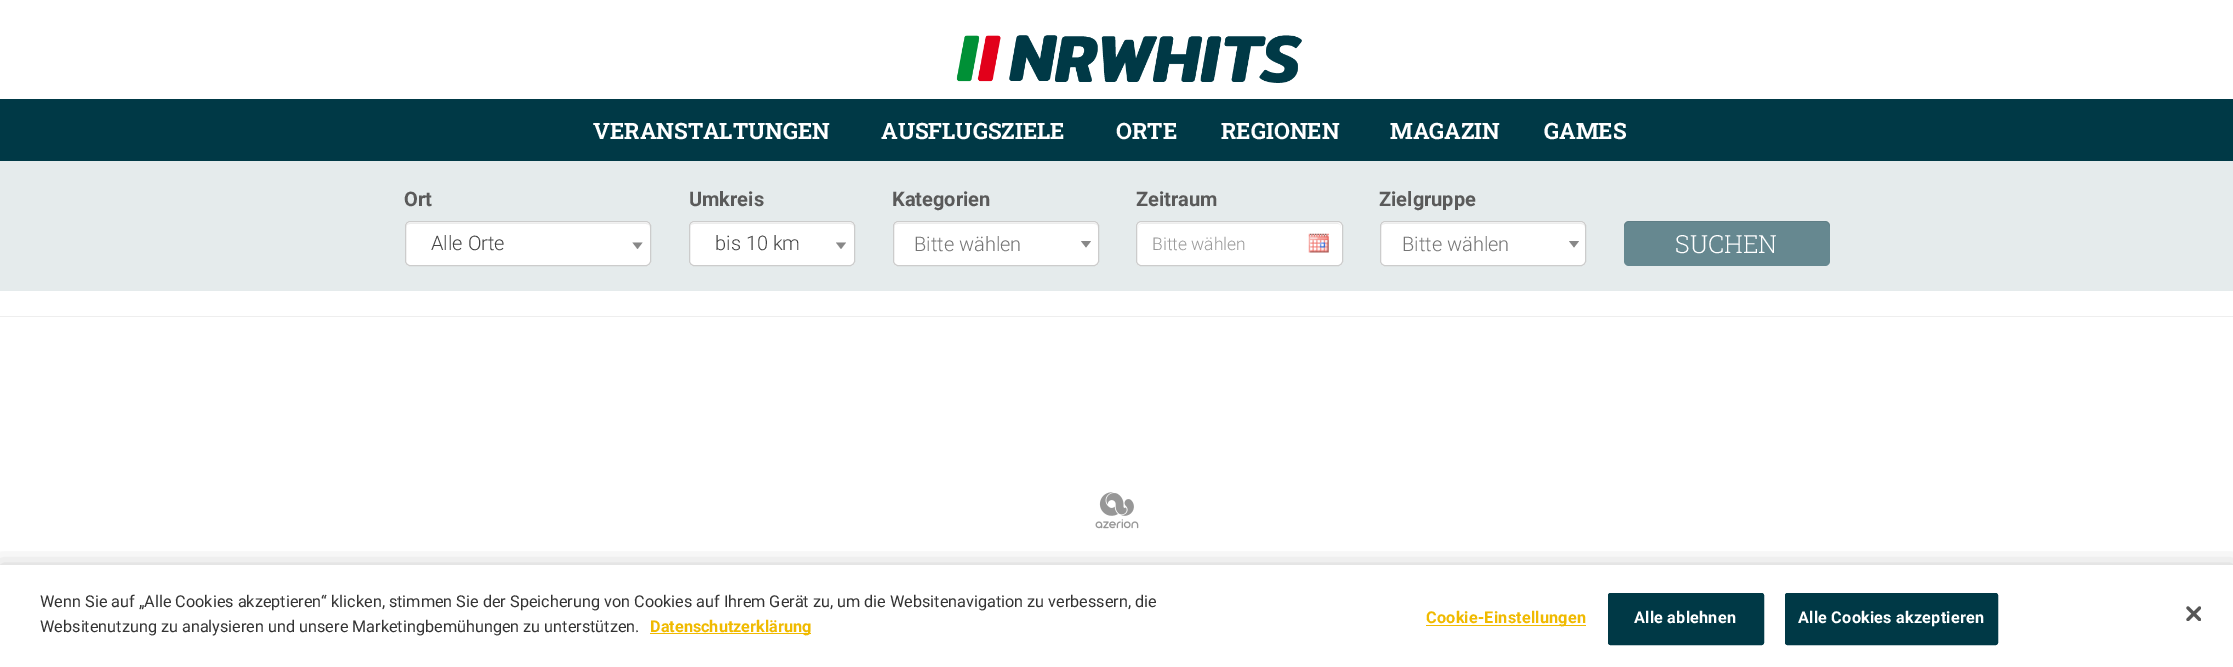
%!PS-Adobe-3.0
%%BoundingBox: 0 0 2233 667
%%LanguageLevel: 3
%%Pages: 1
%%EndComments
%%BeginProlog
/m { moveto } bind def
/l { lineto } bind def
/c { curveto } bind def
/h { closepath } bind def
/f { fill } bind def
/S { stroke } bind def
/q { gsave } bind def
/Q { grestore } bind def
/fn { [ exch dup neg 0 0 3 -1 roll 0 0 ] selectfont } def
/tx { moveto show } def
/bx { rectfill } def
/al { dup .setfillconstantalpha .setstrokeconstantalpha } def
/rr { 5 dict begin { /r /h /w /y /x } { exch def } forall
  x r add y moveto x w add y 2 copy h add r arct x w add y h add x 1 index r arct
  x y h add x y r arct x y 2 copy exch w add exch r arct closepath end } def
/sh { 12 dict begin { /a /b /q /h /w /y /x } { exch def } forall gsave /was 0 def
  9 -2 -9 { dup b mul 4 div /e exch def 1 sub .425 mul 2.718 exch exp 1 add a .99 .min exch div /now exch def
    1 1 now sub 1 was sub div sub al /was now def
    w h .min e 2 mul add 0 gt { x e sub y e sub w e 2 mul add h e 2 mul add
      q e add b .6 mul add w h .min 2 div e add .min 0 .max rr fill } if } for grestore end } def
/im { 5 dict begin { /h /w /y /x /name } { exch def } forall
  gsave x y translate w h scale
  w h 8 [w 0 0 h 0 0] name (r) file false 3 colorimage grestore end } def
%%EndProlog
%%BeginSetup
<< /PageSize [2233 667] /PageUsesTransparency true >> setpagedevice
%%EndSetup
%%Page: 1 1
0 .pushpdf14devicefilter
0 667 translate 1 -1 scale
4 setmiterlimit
1 setgray
0 0 2233 667 bx
0.933 setgray
0 316 2233 1 bx
(image0.raw) 956 35 346 48 im
0 0.224 0.275 setrgbcolor
0 99 2233 62 bx
/RobotoSlab-Bold 22.5 fn
1 setgray
(VERANSTALTUNGEN) 593 139 tx
(AUSFLUGSZIELE) 881 139 tx
(ORTE) 1116 139 tx
(REGIONEN) 1221 139 tx
(MAGAZIN) 1390 139 tx
(GAMES) 1544 139 tx
0.898 0.922 0.925 setrgbcolor
0 161 2233 130 bx
/Roboto-Bold 20 fn
0.353 setgray
(Ort) 404 206 tx
1 setgray
405 221 246 45 5 rr f
0.925 setgray
410 224 m 646 224 l 648 224 650 225 650 228 c 650 227 l 650 225 648 223 646 223 c 410 223 l 408 223 406 225 406 227 c 406 228 l 406 225 408 224 410 224 c h f
0.8 setgray
405.5 221.5 245 44 4.5 rr S
/Roboto-Light 20 fn
0.267 setgray
(Alle Orte) 431 250 tx
0.533 setgray
632.5 242.5 m 642.5 242.5 l 637.5 249 l h f
/Roboto-Bold 20 fn
0.353 setgray
(Umkreis) 689 206 tx
1 setgray
689 221 166 45 5 rr f
0.925 setgray
694 224 m 850 224 l 852 224 854 225 854 228 c 854 226 853 224 851 223 c 693 223 l 691 224 690 226 690 228 c 690 225 692 224 694 224 c h f
0.8 setgray
689.5 221.5 165 44 4.5 rr S
/Roboto-Light 20 fn
0.267 setgray
(bis 10 km) 715 250 tx
0.533 setgray
836 242.5 m 846 242.5 l 841 249 l h f
/Roboto-Bold 20 fn
0.353 setgray
(Kategorien) 892 206 tx
1 setgray
893 221 206 45 5 rr f
0.925 setgray
898 224 m 1094 224 l 1096 224 1098 225 1098 228 c 1098 227 l 1098 225 1096 223 1094 223 c 898 223 l 896 223 894 225 894 227 c 894 228 l 894 225 895 224 898 224 c h f
0.8 setgray
893.5 221.5 205 44 4.5 rr S
/Roboto-Light 20 fn
0.459 setgray
(Bitte wählen) 914 251 tx
0.533 setgray
1081 241 m 1091 241 l 1086 247.5 l h f
/Roboto-Bold 20 fn
0.353 setgray
(Zeitraum) 1136 206 tx
1 setgray
1136 221 207 45 5 rr f
0.925 setgray
1141 224 m 1338 224 l 1340 224 1341 225 1341 228 c 1341 227 l 1341 225 1339 223 1337 223 c 1142 223 l 1140 223 1138 225 1138 227 c 1138 228 l 1138 225 1139 224 1141 224 c h f
0.8 setgray
1136.5 221.5 206 44 4.5 rr S
/Roboto-Light 17.5 fn
0.6 setgray
(Bitte wählen) 1152 250 tx
(image1.raw) 1308 233 21 20 im
/Roboto-Bold 20 fn
0.353 setgray
(Zielgruppe) 1379 206 tx
1 setgray
1380 221 206 45 5 rr f
0.925 setgray
1385 224 m 1581 224 l 1583 224 1585 225 1585 228 c 1585 227 l 1585 225 1583 223 1581 223 c 1385 223 l 1383 223 1381 225 1381 227 c 1381 228 l 1381 225 1383 224 1385 224 c h f
0.8 setgray
1380.5 221.5 205 44 4.5 rr S
/Roboto-Light 20 fn
0.459 setgray
(Bitte wählen) 1402 251 tx
0.533 setgray
1569 241 m 1579 241 l 1574 247.5 l h f
0.4 0.533 0.565 setrgbcolor
1624 221 206 45 5 rr f
0.07 al
0 setgray
1629 222 m 1825 222 l 1828 222 1830 225 1830 228 c 1830 226 l 1830 223 1828 221 1825 221 c 1629 221 l 1626 221 1624 223 1624 226 c 1624 228 l 1624 225 1626 222 1629 222 c h f
/RobotoSlab-Light 25 fn
1 al
1 setgray
(SUCHEN) 1675 253 tx
(image2.raw) 1095 492 44 37 im
q
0 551 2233 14 rectclip
0 setgray
0 565 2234 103 0 11 0.2 sh
Q
/Roboto-Regular 16.25 fn
0.2 setgray
(Wenn Sie auf „Alle Cookies akzeptieren“ klicken, stimmen Sie der Speicherung von Cookies auf Ihrem Gerät zu, um die Websitenavigation zu verbessern, die) 40 607 tx
(Websitenutzung zu analysieren und unsere Marketingbemühungen zu unterstützen.) 40 632 tx
0.941 0.729 0 setrgbcolor
650 633 161 1 bx
/Roboto-Bold 16.25 fn
(Datenschutzerklärung) 650 632 tx
1426 625 160 1 bx
1426 623 m 0.2 0 (Cookie-Einstellungen) ashow
0 0.224 0.275 setrgbcolor
1608.5 593.5 155 51 2 rr q f Q
S
1 setgray
1634 623 m 0.2 0 (Alle ablehnen) ashow
0 0.224 0.275 setrgbcolor
1785.5 593.5 212 51 2 rr q f Q
S
1 setgray
1798 623 m 0.2 0 (Alle Cookies akzeptieren) ashow
(image3.raw) 2186 606 15 15 im
.poppdf14devicefilter showpage
%%EOF
